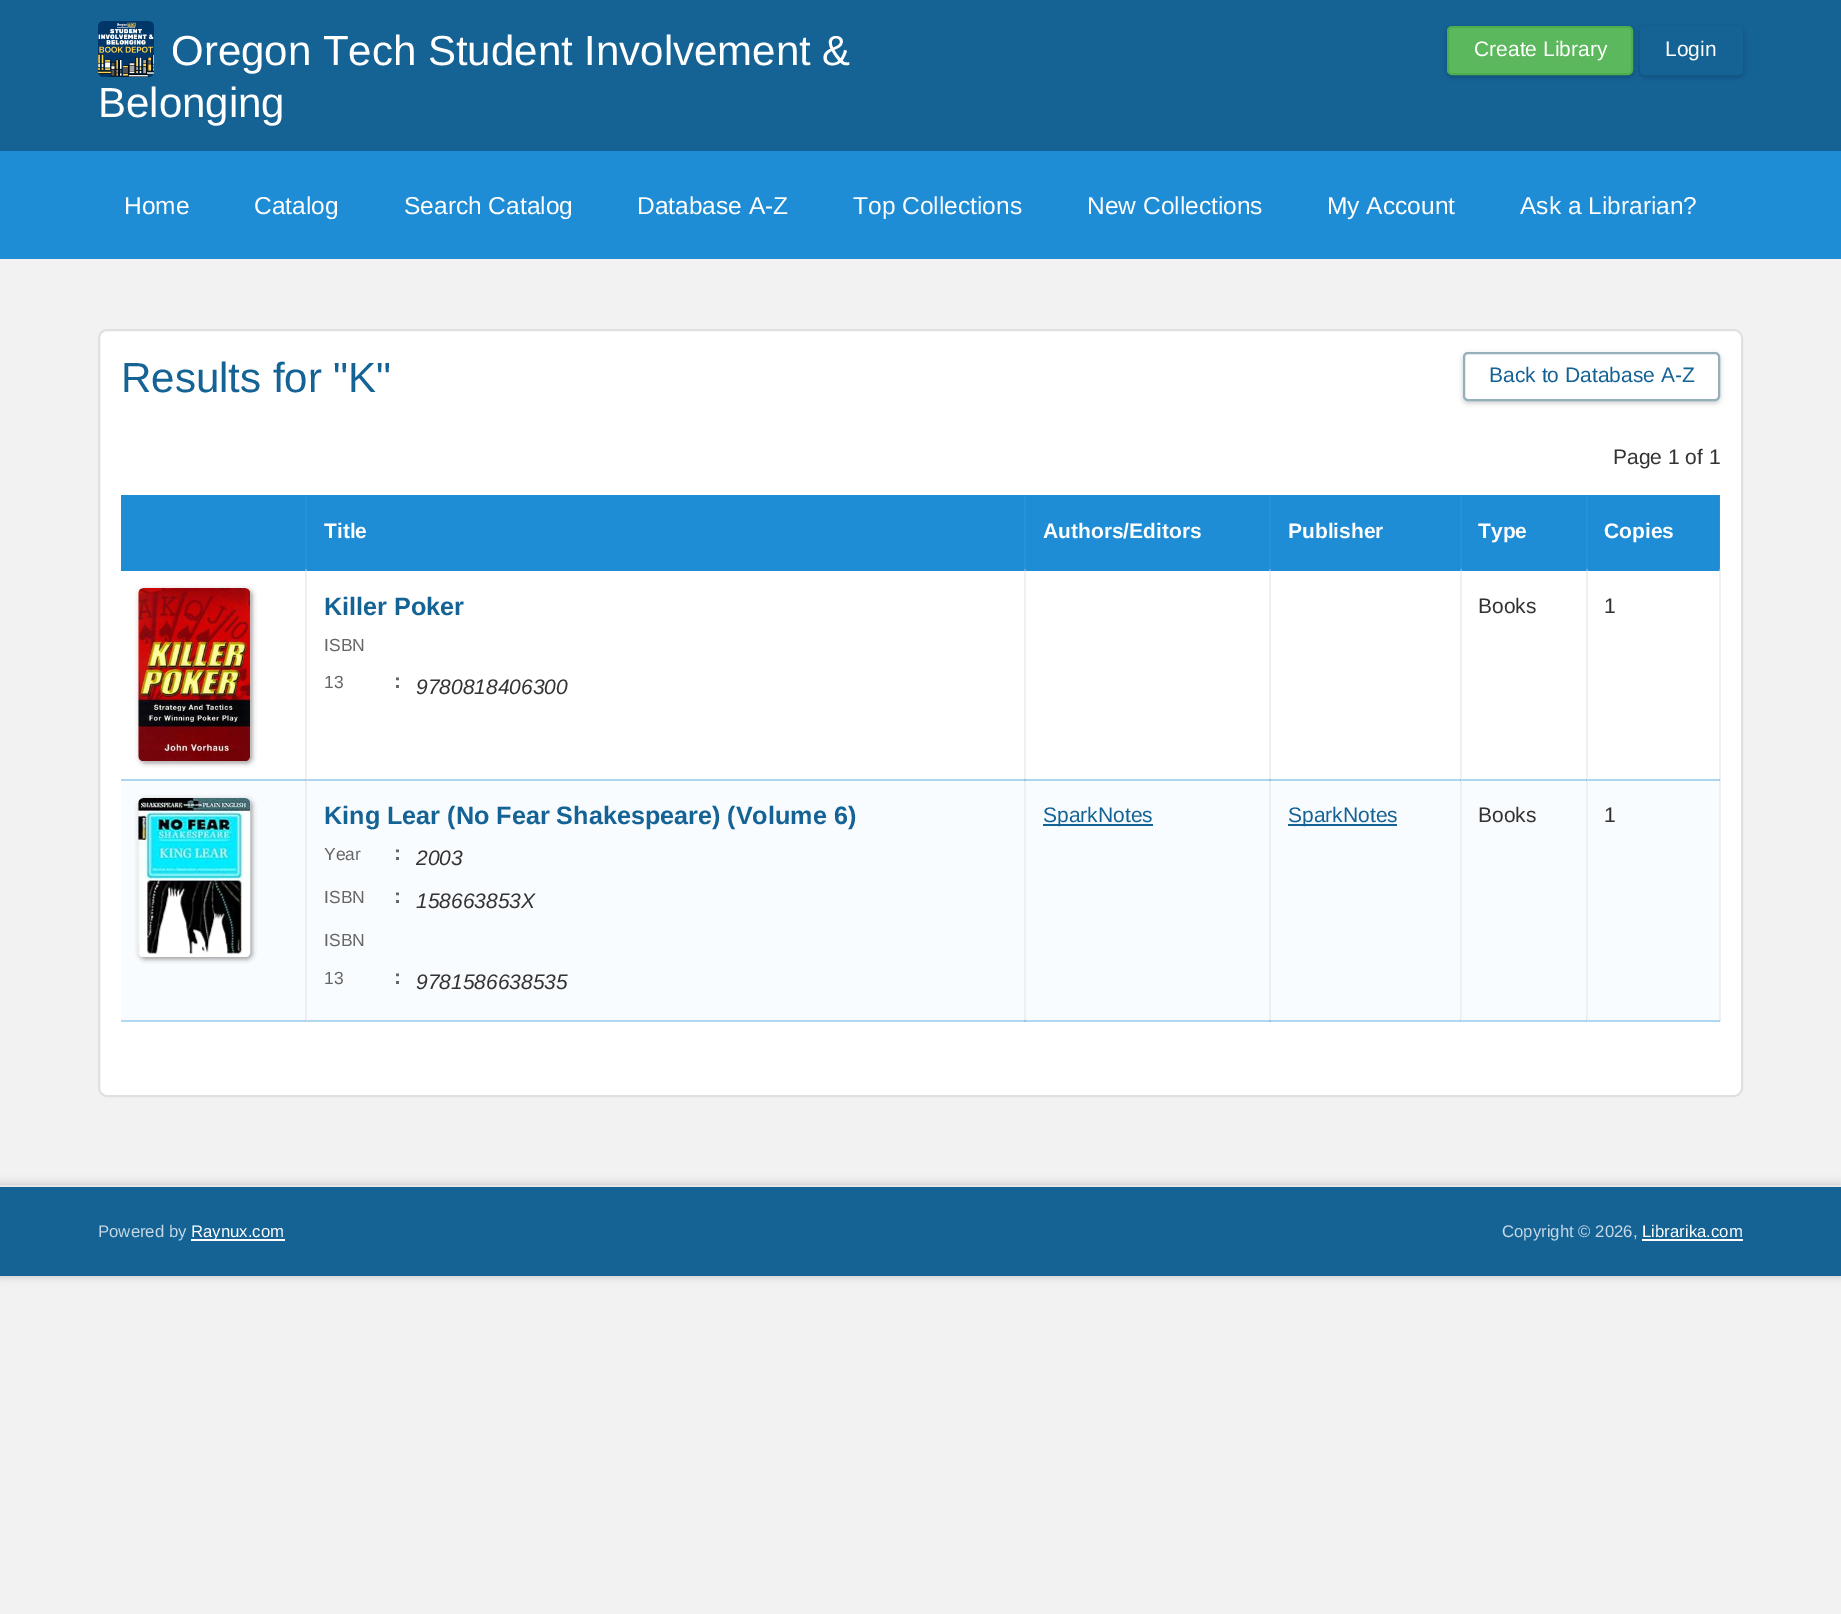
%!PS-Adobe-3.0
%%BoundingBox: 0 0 1841 1614
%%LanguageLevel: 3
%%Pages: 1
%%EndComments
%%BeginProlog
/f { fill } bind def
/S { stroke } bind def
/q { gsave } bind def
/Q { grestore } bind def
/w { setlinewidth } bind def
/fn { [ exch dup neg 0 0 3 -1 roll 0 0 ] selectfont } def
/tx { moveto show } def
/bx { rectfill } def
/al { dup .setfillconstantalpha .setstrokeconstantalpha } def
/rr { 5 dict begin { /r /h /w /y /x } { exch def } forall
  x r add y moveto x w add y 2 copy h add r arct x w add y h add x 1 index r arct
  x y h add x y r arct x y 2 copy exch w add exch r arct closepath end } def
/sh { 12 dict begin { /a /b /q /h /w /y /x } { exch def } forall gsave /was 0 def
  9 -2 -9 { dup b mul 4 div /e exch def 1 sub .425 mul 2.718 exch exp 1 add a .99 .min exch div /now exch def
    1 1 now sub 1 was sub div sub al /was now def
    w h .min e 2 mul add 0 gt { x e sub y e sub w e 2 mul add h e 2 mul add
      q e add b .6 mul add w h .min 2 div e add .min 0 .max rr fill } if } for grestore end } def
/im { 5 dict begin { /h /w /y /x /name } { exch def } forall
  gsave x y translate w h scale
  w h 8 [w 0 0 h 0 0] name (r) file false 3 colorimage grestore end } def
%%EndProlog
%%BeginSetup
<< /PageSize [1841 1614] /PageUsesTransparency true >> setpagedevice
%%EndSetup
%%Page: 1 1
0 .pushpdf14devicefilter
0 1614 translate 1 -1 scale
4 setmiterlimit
0.949 setgray
0 0 1841 1614 bx
0.082 0.384 0.584 setrgbcolor
0 0 1841 151 bx
(image0.raw) 98 21 56 56 im
/LiberationSans-Regular 42 fn
1 setgray
(Oregon Tech Student Involvement &) 171 65 tx
(Belonging) 98 117 tx
0 setgray
1447 28 186 49 5 2.5 0.2 sh
0.361 0.722 0.361 setrgbcolor
1448 27 184 47 4 rr q f Q
0.298 0.682 0.298 setrgbcolor
2 w
S
/LiberationSans-Regular 21 fn
1 setgray
(Create Library) 1474 56 tx
0 setgray
1640 28 103 49 5 2.5 0.2 sh
0.082 0.384 0.584 setrgbcolor
1641 27 101 47 4 rr q f Q
S
1 setgray
(Login) 1665 56 tx
0.122 0.553 0.839 setrgbcolor
0 151 1841 108 bx
/LiberationSans-Regular 24.5 fn
1 setgray
(Home) 124 214 tx
(Catalog) 254 214 tx
(Search Catalog) 404 214 tx
(Database A-Z) 637 214 tx
(Top Collections) 853 214 tx
(New Collections) 1087 214 tx
(My Account) 1327 214 tx
(Ask a Librarian?) 1520 214 tx
98 329 1645 768 9 rr f
0.941 setgray
305 569 2 212 bx
1024 569 2 212 bx
1269 569 2 212 bx
1460 569 2 212 bx
1586 569 2 212 bx
1719 569 2 212 bx
0.694 0.843 0.945 setrgbcolor
121 1020 1599 2 bx
0.835 0.886 0.922 setrgbcolor
305 1020 2 2 bx
0.584 0.769 0.894 setrgbcolor
305 1020 1 2 bx
1024 1020 2 2 bx
1269 1020 2 2 bx
0.835 0.886 0.922 setrgbcolor
1460 1020 2 2 bx
0.584 0.769 0.894 setrgbcolor
1460 1020 1 2 bx
0.835 0.886 0.922 setrgbcolor
1586 1020 2 2 bx
0.584 0.769 0.894 setrgbcolor
1586 1020 1 2 bx
0.941 setgray
1720 779 1 243 bx
0.922 setgray
1719 779 2 2 bx
0.655 0.804 0.906 setrgbcolor
1719 1020 1 2 bx
0.878 setgray
99 330 1643 766 8 rr S
/LiberationSans-Regular 42 fn
0.082 0.384 0.584 setrgbcolor
(Results for "K") 121 392 tx
0 setgray
1463 354 257 49 5 2.5 0.2 sh
1 setgray
1464 353 255 47 4 rr q f Q
0.584 0.686 0.733 setrgbcolor
S
/LiberationSans-Regular 21 fn
0.082 0.384 0.584 setrgbcolor
(Back to Database A-Z) 1489 382 tx
0.2 setgray
(Page 1 of 1) 1613 464 tx
0.122 0.553 0.839 setrgbcolor
121 495 184 74 bx
121 569 185 2 bx
0.161 0.573 0.843 setrgbcolor
305 495 2 76 bx
0.353 0.659 0.859 setrgbcolor
305 569 1 2 bx
0.122 0.553 0.839 setrgbcolor
307 495 717 74 bx
306 569 720 2 bx
0.161 0.573 0.843 setrgbcolor
1024 495 2 76 bx
0.478 0.714 0.871 setrgbcolor
306 569 1 2 bx
0.353 0.659 0.859 setrgbcolor
1024 569 2 2 bx
/LiberationSans-Bold 21 fn
1 setgray
(Title) 324 538 tx
0.122 0.553 0.839 setrgbcolor
1026 495 243 76 bx
1 setgray
(Authors/Editors) 1043 538 tx
0.122 0.553 0.839 setrgbcolor
1271 495 189 74 bx
0.161 0.573 0.843 setrgbcolor
1269 495 2 76 bx
0.122 0.553 0.839 setrgbcolor
1269 569 191 2 bx
0.353 0.659 0.859 setrgbcolor
1269 569 2 2 bx
1 setgray
(Publisher) 1288 538 tx
0.122 0.553 0.839 setrgbcolor
1462 495 124 74 bx
0.161 0.573 0.843 setrgbcolor
1460 495 2 76 bx
0.122 0.553 0.839 setrgbcolor
1460 569 126 2 bx
0.478 0.714 0.871 setrgbcolor
1460 569 2 2 bx
0.353 0.659 0.859 setrgbcolor
1460 569 1 2 bx
1 setgray
(Type) 1478 538 tx
0.122 0.553 0.839 setrgbcolor
1588 495 131 74 bx
0.161 0.573 0.843 setrgbcolor
1586 495 2 76 bx
0.122 0.553 0.839 setrgbcolor
1586 569 134 2 bx
0.161 0.573 0.843 setrgbcolor
1719 495 1 76 bx
0.478 0.714 0.871 setrgbcolor
1586 569 2 2 bx
0.353 0.659 0.859 setrgbcolor
1586 569 1 2 bx
0.467 0.71 0.871 setrgbcolor
1719 569 1 2 bx
1 setgray
(Copies) 1604 538 tx
0.6 setgray
140 590 112 173 5 2.5 1 sh
(image1.raw) 138 588 113 174 im
/LiberationSans-Bold 25.2 fn
0.082 0.384 0.584 setrgbcolor
(Killer Poker) 324 615 tx
/LiberationSans-Regular 17.5 fn
0.4 setgray
(ISBN) 324 651 tx
(13) 324 688 tx
/LiberationSans-Bold 21 fn
(:) 394 688 tx
/LiberationSans-Italic 21 fn
0.2 setgray
(9780818406300) 416 694 tx
/LiberationSans-Regular 21 fn
(Books) 1478 613 tx
(1) 1604 613 tx
0.976 0.988 1 setrgbcolor
121 781 1598 239 bx
0.678 0.835 0.945 setrgbcolor
121 779 1599 2 bx
0.933 0.937 0.941 setrgbcolor
305 779 2 241 bx
0.82 0.875 0.91 setrgbcolor
305 779 2 2 bx
0.576 0.761 0.886 setrgbcolor
305 779 1 2 bx
0.933 0.937 0.941 setrgbcolor
1024 779 2 241 bx
0.576 0.761 0.886 setrgbcolor
1024 779 2 2 bx
0.933 0.937 0.941 setrgbcolor
1269 779 2 241 bx
0.576 0.761 0.886 setrgbcolor
1269 779 2 2 bx
0.933 0.937 0.941 setrgbcolor
1460 779 2 241 bx
0.82 0.875 0.91 setrgbcolor
1460 779 2 2 bx
0.576 0.761 0.886 setrgbcolor
1460 779 1 2 bx
0.933 0.937 0.941 setrgbcolor
1586 779 2 241 bx
0.82 0.875 0.91 setrgbcolor
1586 779 2 2 bx
0.576 0.761 0.886 setrgbcolor
1586 779 1 2 bx
0.933 0.937 0.941 setrgbcolor
1719 779 1 241 bx
0.639 0.788 0.894 setrgbcolor
1719 779 1 2 bx
0.6 setgray
140 800 112 159 5 2.5 1 sh
(image2.raw) 138 798 113 159 im
/LiberationSans-Bold 25.2 fn
0.082 0.384 0.584 setrgbcolor
(King Lear \(No Fear Shakespeare\) \(Volume 6\)) 324 824 tx
/LiberationSans-Regular 17.5 fn
0.4 setgray
(Year) 324 860 tx
/LiberationSans-Bold 21 fn
(:) 394 860 tx
/LiberationSans-Italic 21 fn
0.2 setgray
(2003) 416 865 tx
/LiberationSans-Regular 17.5 fn
0.4 setgray
(ISBN) 324 903 tx
/LiberationSans-Bold 21 fn
(:) 394 903 tx
/LiberationSans-Italic 21 fn
0.2 setgray
(158663853X) 416 908 tx
/LiberationSans-Regular 17.5 fn
0.4 setgray
(ISBN) 324 946 tx
(13) 324 984 tx
/LiberationSans-Bold 21 fn
(:) 394 984 tx
/LiberationSans-Italic 21 fn
0.2 setgray
(9781586638535) 416 989 tx
0.082 0.384 0.584 setrgbcolor
1043 824 110 2 bx
/LiberationSans-Regular 21 fn
(SparkNotes) 1043 822 tx
1288 824 109 2 bx
(SparkNotes) 1288 822 tx
0.2 setgray
(Books) 1478 822 tx
(1) 1604 822 tx
0 setgray
0 1185 1841 91 0 4.5 0.2 sh
0.082 0.384 0.584 setrgbcolor
0 1187 1841 89 bx
0.91 setgray
0 1185 1841 2 bx
/LiberationSans-Regular 16.75 fn
0.773 0.847 0.898 setrgbcolor
(Powered by) 98 1237 tx
1 setgray
191 1239 94 2 bx
(Raynux.com) 191 1237 tx
0.773 0.847 0.898 setrgbcolor
(Copyright © 2026,) 1502 1237 tx
1 setgray
(Librarika.com) 1642 1237 tx
1642 1239 101 2 bx
.poppdf14devicefilter showpage
%%EOF
